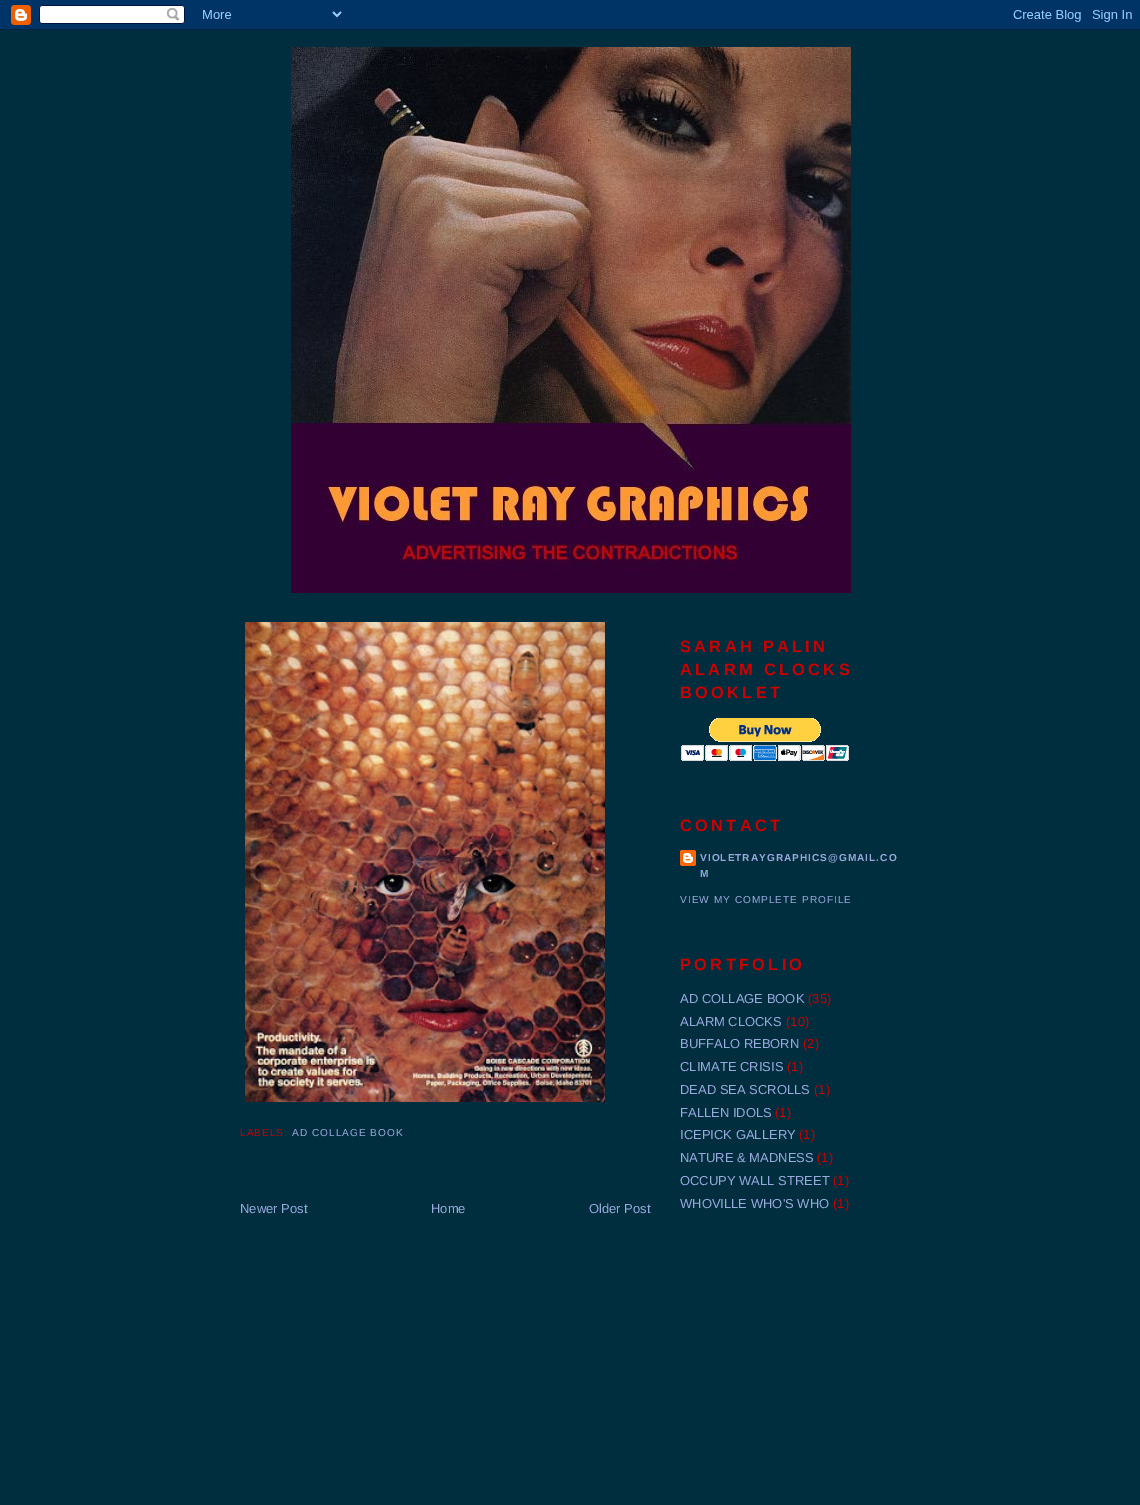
%!PS-Adobe-3.0
%%BoundingBox: 0 0 1140 1505
%%LanguageLevel: 3
%%Pages: 1
%%EndComments
%%BeginProlog
/m { moveto } bind def
/fn { [ exch dup neg 0 0 3 -1 roll 0 0 ] selectfont } def
/tx { moveto show } def
/bx { rectfill } def
/im { 5 dict begin { /h /w /y /x /name } { exch def } forall
  gsave x y translate w h scale
  w h 8 [w 0 0 h 0 0] name (r) file false 3 colorimage grestore end } def
%%EndProlog
%%BeginSetup
<< /PageSize [1140 1505] >> setpagedevice
%%EndSetup
%%Page: 1 1
0 1505 translate 1 -1 scale
4 setmiterlimit
0 0.18 0.247 setrgbcolor
0 0 1140 1505 bx
(image0.raw) 0 0 1140 30 im
(image1.raw) 291 47 560 546 im
(image2.raw) 245 622 360 480 im
/LiberationSans-Regular 10.1 fn
0.8 0 0 setrgbcolor
240 1136 m 1 0 (LABELS:) ashow
0.6 0.667 0.867 setrgbcolor
292 1136 m 1 0 (AD COLLAGE BOOK) ashow
/LiberationSans-Regular 13 fn
(Newer Post) 240 1213 tx
(Home) 431 1213 tx
(Older Post) 589 1213 tx
/LiberationSans-Bold 16.5 fn
0.8 0 0 setrgbcolor
680 652 m 3.25 0 (SARAH PALIN) ashow
680 675 m 3.25 0 (ALARM CLOCKS) ashow
680 698 m 3.25 0 (BOOKLET) ashow
(image3.raw) 681 718 168 43 im
680 831 m 3.25 0 (CONTACT) ashow
(image4.raw) 680 850 16 16 im
/LiberationSans-Bold 10.1 fn
0.6 0.667 0.867 setrgbcolor
700 861 m 1 0 (VIOLETRAYGRAPHICS@GMAIL.CO) ashow
700 877 m 1 0 (M) ashow
/LiberationSans-Regular 10.1 fn
680 903 m 1 0 (VIEW MY COMPLETE PROFILE) ashow
/LiberationSans-Bold 16.5 fn
0.8 0 0 setrgbcolor
680 970 m 3.25 0 (PORTFOLIO) ashow
/LiberationSans-Regular 13 fn
0.6 0.667 0.867 setrgbcolor
(AD COLLAGE BOOK) 680 1003 tx
0.8 0 0 setrgbcolor
(\(35\)) 808 1003 tx
0.6 0.667 0.867 setrgbcolor
(ALARM CLOCKS) 680 1026 tx
0.8 0 0 setrgbcolor
(\(10\)) 786 1026 tx
0.6 0.667 0.867 setrgbcolor
(BUFFALO REBORN) 680 1048 tx
0.8 0 0 setrgbcolor
(\(2\)) 803 1048 tx
0.6 0.667 0.867 setrgbcolor
(CLIMATE CRISIS) 680 1071 tx
0.8 0 0 setrgbcolor
(\(1\)) 787 1071 tx
0.6 0.667 0.867 setrgbcolor
(DEAD SEA SCROLLS) 680 1094 tx
0.8 0 0 setrgbcolor
(\(1\)) 814 1094 tx
0.6 0.667 0.867 setrgbcolor
(FALLEN IDOLS) 680 1117 tx
0.8 0 0 setrgbcolor
(\(1\)) 775 1117 tx
0.6 0.667 0.867 setrgbcolor
(ICEPICK GALLERY) 680 1139 tx
0.8 0 0 setrgbcolor
(\(1\)) 799 1139 tx
0.6 0.667 0.867 setrgbcolor
(NATURE & MADNESS) 680 1162 tx
0.8 0 0 setrgbcolor
(\(1\)) 817 1162 tx
0.6 0.667 0.867 setrgbcolor
(OCCUPY WALL STREET) 680 1185 tx
0.8 0 0 setrgbcolor
(\(1\)) 833 1185 tx
0.6 0.667 0.867 setrgbcolor
(WHOVILLE WHO'S WHO) 680 1208 tx
0.8 0 0 setrgbcolor
(\(1\)) 833 1208 tx
showpage
%%EOF
